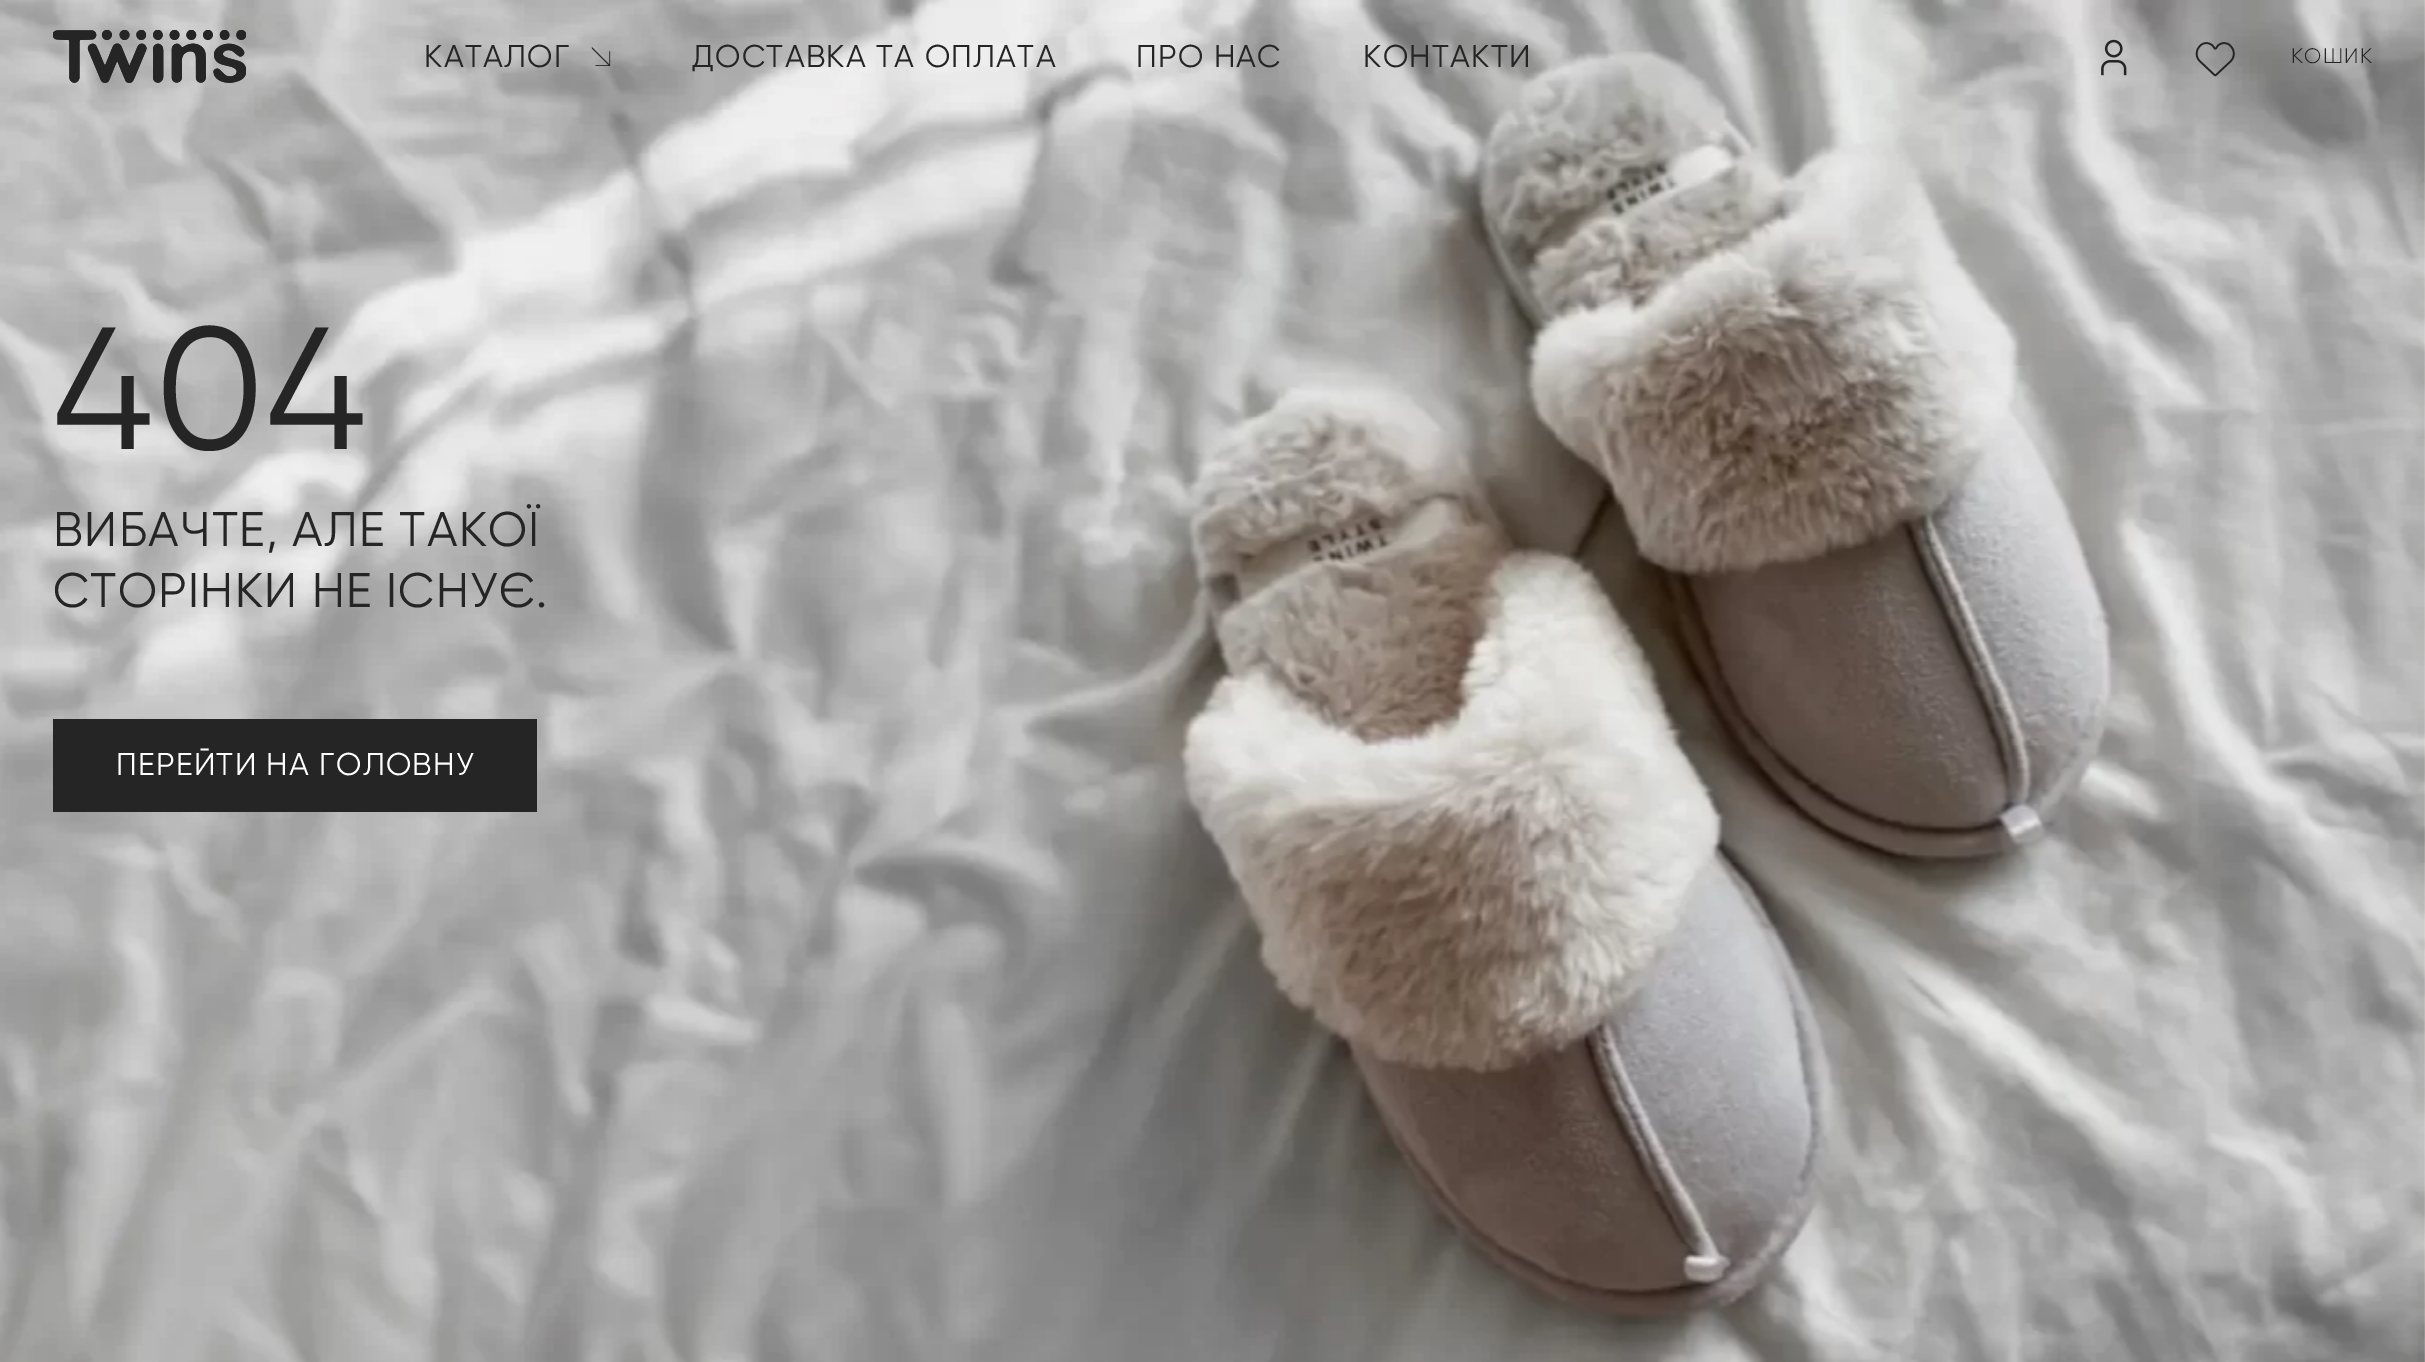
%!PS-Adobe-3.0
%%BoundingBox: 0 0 2425 1362
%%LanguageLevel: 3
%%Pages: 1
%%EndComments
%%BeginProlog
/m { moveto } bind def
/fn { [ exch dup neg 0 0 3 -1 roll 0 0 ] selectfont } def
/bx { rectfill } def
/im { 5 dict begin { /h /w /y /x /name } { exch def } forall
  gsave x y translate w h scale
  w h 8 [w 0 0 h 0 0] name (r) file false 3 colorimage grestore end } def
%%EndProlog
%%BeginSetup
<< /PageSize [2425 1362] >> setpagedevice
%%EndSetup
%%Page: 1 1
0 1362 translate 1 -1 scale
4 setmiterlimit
1 setgray
0 0 2425 1362 bx
(image4.raw) 0 0 2425 1362 im
(image0.raw) 53 30 193 53 im
/Gilroy-Regular 31.5 fn
0.145 setgray
424 67 m 1.25 0 (КАТАЛОГ) ashow
(image1.raw) 591 47 20 19 im
692 67 m 1.25 0 (ДОСТАВКА ТА ОПЛАТА) ashow
1136 67 m 1.25 0 (ПРО НАС) ashow
1363 67 m 1.25 0 (КОНТАКТИ) ashow
(image2.raw) 2101 39 26 37 im
(image3.raw) 2195 42 40 35 im
/Gilroy-Light 21 fn
2291 63 m 1.25 0 (КОШИК) ashow
/Gilroy-Regular 174 fn
53 449 m 1.25 0 (404) ashow
/Gilroy-Regular 48.5 fn
53 546 m 1.25 0 (ВИБАЧТЕ, АЛЕ ТАКОЇ) ashow
53 607 m 1.25 0 (СТОРІНКИ НЕ ІСНУЄ.) ashow
53 719 484 93 bx
/Gilroy-Regular 31.5 fn
1 setgray
116 775 m 1.25 0 (ПЕРЕЙТИ НА ГОЛОВНУ) ashow
showpage
%%EOF
